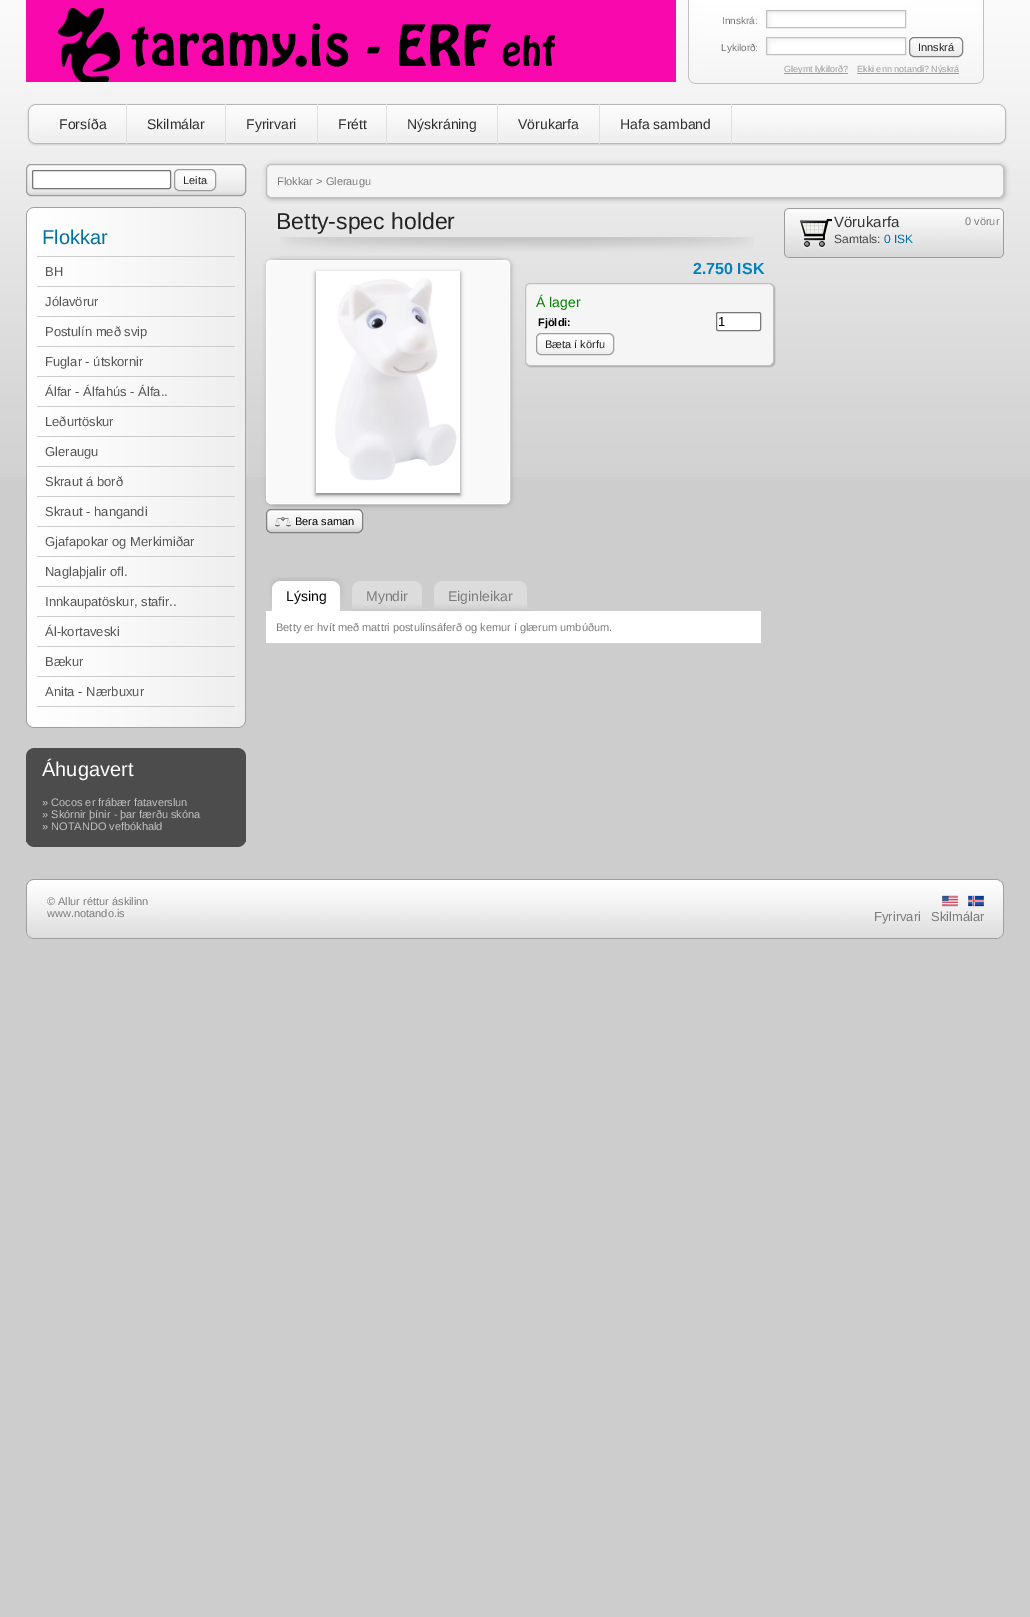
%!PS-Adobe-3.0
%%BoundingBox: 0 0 1030 1617
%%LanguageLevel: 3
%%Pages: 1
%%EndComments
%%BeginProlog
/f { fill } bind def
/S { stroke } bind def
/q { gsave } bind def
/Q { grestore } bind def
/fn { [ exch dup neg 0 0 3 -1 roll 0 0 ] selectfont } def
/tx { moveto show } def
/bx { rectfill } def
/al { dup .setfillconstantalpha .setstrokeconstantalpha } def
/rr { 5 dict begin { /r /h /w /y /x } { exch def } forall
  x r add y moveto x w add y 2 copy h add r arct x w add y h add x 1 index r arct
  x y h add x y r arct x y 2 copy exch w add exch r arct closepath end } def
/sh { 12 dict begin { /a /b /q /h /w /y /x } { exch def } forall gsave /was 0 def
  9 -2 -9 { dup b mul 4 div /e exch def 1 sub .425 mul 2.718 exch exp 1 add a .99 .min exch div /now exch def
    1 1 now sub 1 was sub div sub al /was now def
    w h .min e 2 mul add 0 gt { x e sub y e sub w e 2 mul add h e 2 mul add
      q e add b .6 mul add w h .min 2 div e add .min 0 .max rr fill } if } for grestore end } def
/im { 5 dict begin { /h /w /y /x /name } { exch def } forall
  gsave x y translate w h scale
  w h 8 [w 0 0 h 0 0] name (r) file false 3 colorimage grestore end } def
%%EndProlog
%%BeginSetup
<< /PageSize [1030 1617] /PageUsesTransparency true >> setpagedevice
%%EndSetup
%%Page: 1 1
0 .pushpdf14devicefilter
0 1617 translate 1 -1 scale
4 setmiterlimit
0.804 setgray
0 0 1030 1617 bx
(image0.raw) 0 0 1030 477 im
(image1.raw) 26 0 650 82 im
(image2.raw) 688 0 296 84 im
/LiberationSans-Regular 10 fn
0.439 setgray
(Innskrá:) 722 24 tx
(image3.raw) 767 11 138 16 im
0.753 setgray
766.5 10.5 139 17 rectstroke
0.439 setgray
(Lykilorð:) 721 51 tx
(image3.raw) 767 38 138 16 im
0.753 setgray
766.5 37.5 139 17 rectstroke
(image4.raw) 909 38 54 19 im
0.502 setgray
909.5 37.5 53 19 4.5 rr S
/LiberationSans-Regular 11 fn
0.137 setgray
(Innskrá) 918 51 tx
0.612 setgray
784 73 64 1 bx
/LiberationSans-Regular 9 fn
(Gleymt lykilorð?) 784 72 tx
857 73 102 1 bx
(Ekki enn notandi? Nýskrá) 857 72 tx
(image5.raw) 26 103 13 43 im
(image6.raw) 995 103 13 43 im
(image7.raw) 39 103 956 43 im
0.878 setgray
126 104 1 40 bx
/LiberationSans-Regular 14 fn
0.18 setgray
(Forsíða) 59 129 tx
0.878 setgray
225 104 1 40 bx
0.18 setgray
(Skilmálar) 147 129 tx
0.878 setgray
317 104 1 40 bx
0.18 setgray
(Fyrirvari) 246 129 tx
0.878 setgray
386 104 1 40 bx
0.18 setgray
(Frétt) 338 129 tx
0.878 setgray
497 104 1 40 bx
0.18 setgray
(Nýskráning) 407 129 tx
0.878 setgray
599 104 1 40 bx
0.18 setgray
(Vörukarfa) 518 129 tx
0.878 setgray
731 104 1 40 bx
0.18 setgray
(Hafa samband) 620 129 tx
(image8.raw) 26 165 220 31 im
0.616 setgray
26.5 164.5 219 31 4.5 rr S
1 setgray
32.5 170.5 138 18 1.5 rr q f Q
0.463 setgray
S
(image9.raw) 174 170 42 21 im
0.616 setgray
174.5 169.5 41 21 4.5 rr S
/LiberationSans-Regular 11 fn
0.137 setgray
(Leita) 183 184 tx
(image10.raw) 26 207 220 8 im
(image11.raw) 26 707 220 21 im
(image12.raw) 26 215 220 42 im
0.8 setgray
37 256 198 1 bx
/LiberationSans-Regular 20 fn
0 0.435 0.639 setrgbcolor
(Flokkar) 42 244 tx
(image13.raw) 26 257 220 30 im
0.8 setgray
37 286 198 1 bx
/LiberationSans-Regular 13 fn
0.337 setgray
(BH) 45 276 tx
(image13.raw) 26 287 220 30 im
0.8 setgray
37 316 198 1 bx
0.337 setgray
(Jólavörur) 45 306 tx
(image13.raw) 26 317 220 30 im
0.8 setgray
37 346 198 1 bx
0.337 setgray
(Postulín með svip) 45 336 tx
(image13.raw) 26 347 220 30 im
0.8 setgray
37 376 198 1 bx
0.337 setgray
(Fuglar - útskornir) 45 366 tx
(image13.raw) 26 377 220 30 im
0.8 setgray
37 406 198 1 bx
0.337 setgray
(Álfar - Álfahús - Álfa..) 45 396 tx
(image13.raw) 26 407 220 30 im
0.8 setgray
37 436 198 1 bx
0.337 setgray
(Leðurtöskur) 45 426 tx
(image13.raw) 26 437 220 30 im
0.8 setgray
37 466 198 1 bx
0.337 setgray
(Gleraugu) 45 456 tx
(image13.raw) 26 467 220 30 im
0.8 setgray
37 496 198 1 bx
0.337 setgray
(Skraut á borð) 45 486 tx
(image13.raw) 26 497 220 30 im
0.8 setgray
37 526 198 1 bx
0.337 setgray
(Skraut - hangandi) 45 516 tx
(image13.raw) 26 527 220 30 im
0.8 setgray
37 556 198 1 bx
0.337 setgray
(Gjafapokar og Merkimiðar) 45 546 tx
(image13.raw) 26 557 220 30 im
0.8 setgray
37 586 198 1 bx
0.337 setgray
(Naglaþjalir ofl.) 45 576 tx
(image13.raw) 26 587 220 30 im
0.8 setgray
37 616 198 1 bx
0.337 setgray
(Innkaupatöskur, stafir..) 45 606 tx
(image13.raw) 26 617 220 30 im
0.8 setgray
37 646 198 1 bx
0.337 setgray
(Ál-kortaveski) 45 636 tx
(image13.raw) 26 647 220 30 im
0.8 setgray
37 676 198 1 bx
0.337 setgray
(Bækur) 45 666 tx
(image13.raw) 26 677 220 30 im
0.8 setgray
37 706 198 1 bx
0.337 setgray
(Anita - Nærbuxur) 45 696 tx
(image14.raw) 26 842 220 5 im
0.298 setgray
26 755 220 87 bx
(image15.raw) 26 748 220 7 im
/LiberationSans-Regular 20 fn
1 setgray
(Áhugavert) 42 776 tx
/LiberationSans-Regular 11 fn
0.757 setgray
(» Cocos er frábær fataverslun) 42 806 tx
(» Skórnir þínir - þar færðu skóna) 42 818 tx
(» NOTANDO vefbókhald) 42 830 tx
0.667 setgray
267 165 738 34 5 2.5 1 sh
0.961 setgray
266.5 164.5 737 33 4.5 rr q f Q
0.753 setgray
S
0.486 setgray
(Flokkar > Gleraugu) 277 185 tx
(image16.raw) 280 237 474 15 im
/LiberationSans-Regular 23 fn
0.137 setgray
(Betty-spec holder) 276 229 tx
/LiberationSans-Bold 16 fn
0.004 0.506 0.745 setrgbcolor
(2.750 ISK) 693 274 tx
0.667 setgray
526 284 249 83 5 0.5 1 sh
0.961 setgray
525.5 283.5 248 82 4.5 rr q f Q
0.753 setgray
S
/LiberationSans-Regular 14 fn
0 0.502 0 setrgbcolor
(Á lager) 536 307 tx
/LiberationSans-Bold 11 fn
0 setgray
(Fjöldi:) 538 326 tx
1 setgray
716.5 312.5 44 18 1.5 rr q f Q
0.463 setgray
S
/LiberationSans-Regular 13 fn
0 setgray
(1) 718 326 tx
(image17.raw) 536 334 78 21 im
0.616 setgray
536.5 333.5 77 21 4.5 rr S
/LiberationSans-Regular 11 fn
0.137 setgray
(Bæta í körfu) 545 348 tx
0.667 setgray
267 261 244 244 5 2.5 1 sh
272 261 233 33 5 2.5 1 sh
272 457 233 48 5 2.5 1 sh
0.976 setgray
266.5 260.5 243 243 4.5 rr q f Q
1 setgray
S
0.467 setgray
316 273 144 222 0 2 1 sh
(image18.raw) 316 271 144 222 im
(image19.raw) 266 510 97 23 im
0.502 setgray
266.5 509.5 96 23 4.5 rr S
(image20.raw) 275 517 16 11 im
0 setgray
(Bera saman) 295 525 tx
(image21.raw) 269 577 64 34 im
(image22.raw) 333 577 13 34 im
/LiberationSans-Regular 14 fn
(Lýsing) 286 601 tx
(image23.raw) 352 581 76 30 im
(image24.raw) 416 581 12 27 im
0.486 setgray
(Myndir) 366 601 tx
(image25.raw) 434 581 99 30 im
(image24.raw) 521 581 12 27 im
(Eiginleikar) 448 601 tx
1 setgray
266 611 495 32 bx
/LiberationSans-Regular 11 fn
0.486 setgray
(Betty er hvít með mattri postulínsáferð og kemur í glærum umbúðum.) 276 631 tx
(image26.raw) 784 208 220 50 im
/LiberationSans-Regular 15 fn
0.216 setgray
(Vörukarfa) 834 227 tx
/LiberationSans-Regular 11 fn
0.486 setgray
(0 vörur) 965 225 tx
/LiberationSans-Regular 12 fn
0.271 setgray
(Samtals:) 834 243 tx
0 0.435 0.639 setrgbcolor
(0 ISK) 884 243 tx
(image27.raw) 26 879 20 60 im
(image28.raw) 984 879 20 60 im
(image29.raw) 46 879 938 60 im
/LiberationSans-Regular 11 fn
0.486 setgray
(© Allur réttur áskilinn) 47 905 tx
(www.notando.is) 47 917 tx
(image30.raw) 942 895 16 12 im
(image31.raw) 968 895 16 12 im
/LiberationSans-Regular 13 fn
(Fyrirvari) 874 921 tx
(Skilmálar) 931 921 tx
.poppdf14devicefilter showpage
%%EOF
